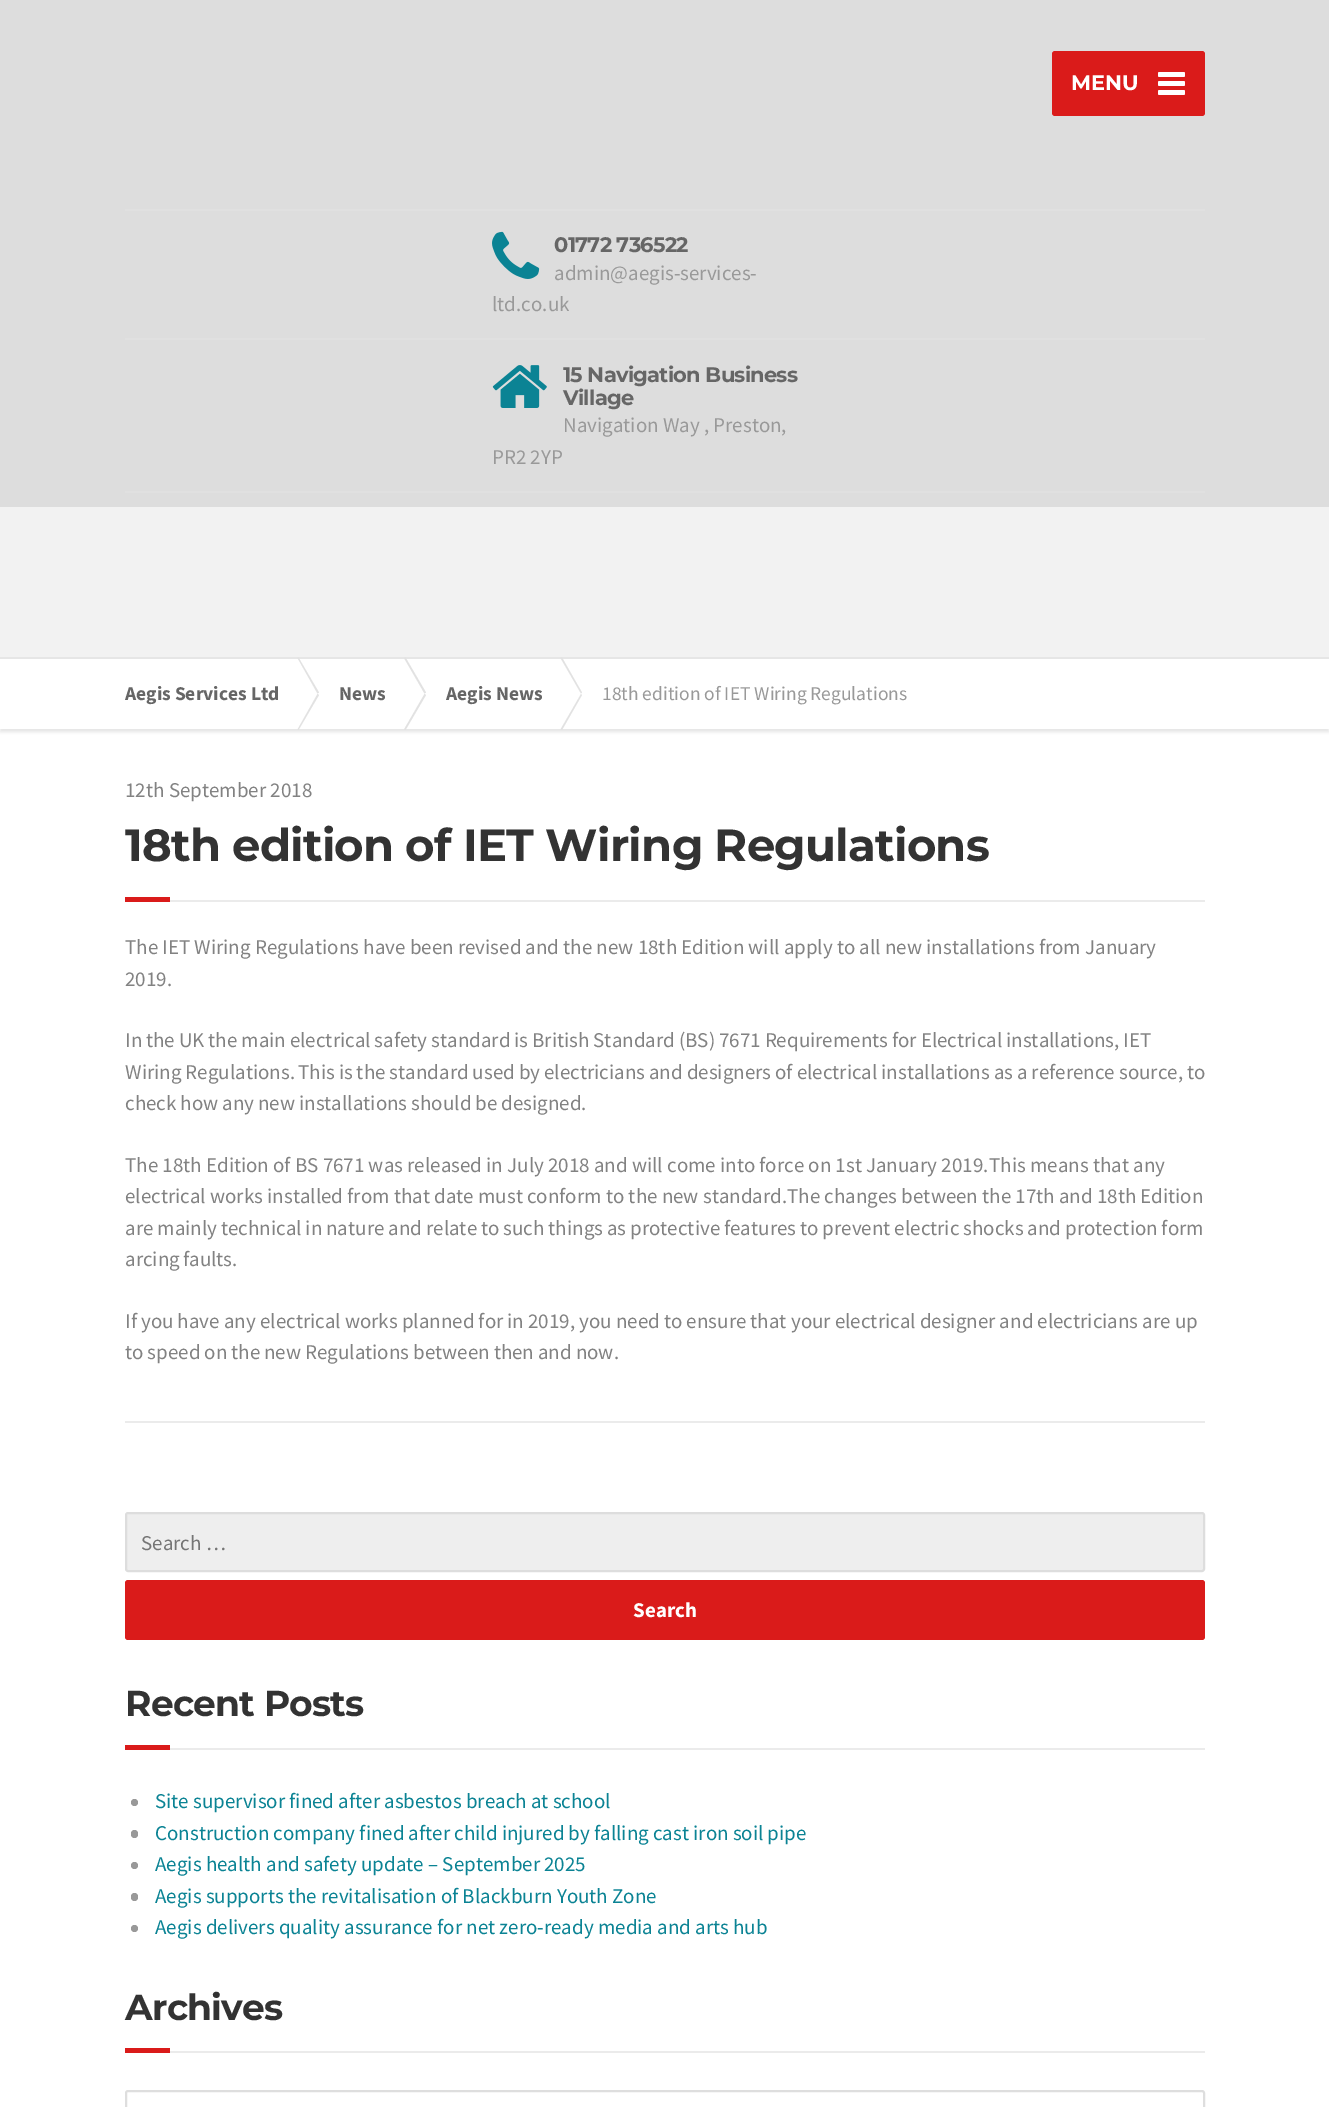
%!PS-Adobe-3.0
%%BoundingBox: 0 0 1329 2107
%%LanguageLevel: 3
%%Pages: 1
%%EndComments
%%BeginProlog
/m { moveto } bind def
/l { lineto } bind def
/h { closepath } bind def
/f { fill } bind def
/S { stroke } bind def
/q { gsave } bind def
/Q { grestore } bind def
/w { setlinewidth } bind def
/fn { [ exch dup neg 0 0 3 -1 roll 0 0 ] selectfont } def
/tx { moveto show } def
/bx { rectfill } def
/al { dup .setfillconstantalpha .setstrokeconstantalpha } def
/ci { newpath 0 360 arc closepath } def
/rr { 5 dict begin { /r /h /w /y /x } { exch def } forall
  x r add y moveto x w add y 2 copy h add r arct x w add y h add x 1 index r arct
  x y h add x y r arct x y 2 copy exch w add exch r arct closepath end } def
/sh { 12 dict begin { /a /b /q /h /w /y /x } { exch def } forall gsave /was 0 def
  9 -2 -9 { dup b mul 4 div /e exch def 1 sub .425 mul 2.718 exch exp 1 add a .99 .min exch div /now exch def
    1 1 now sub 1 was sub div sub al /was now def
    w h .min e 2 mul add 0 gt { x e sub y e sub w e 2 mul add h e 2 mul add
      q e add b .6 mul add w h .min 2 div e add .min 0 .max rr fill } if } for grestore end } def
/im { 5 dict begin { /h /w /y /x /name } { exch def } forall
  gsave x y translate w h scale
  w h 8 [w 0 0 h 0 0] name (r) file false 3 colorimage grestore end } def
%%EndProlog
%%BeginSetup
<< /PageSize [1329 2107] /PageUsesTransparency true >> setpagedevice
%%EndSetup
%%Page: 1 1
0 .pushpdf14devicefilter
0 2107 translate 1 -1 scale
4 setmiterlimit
1 setgray
0 0 1329 2107 bx
0.867 setgray
0 0 1329 507 bx
0.855 0.106 0.102 setrgbcolor
1052 51 153 65 3 rr f
/Montserrat-Thin 21 fn
1 setgray
(MENU) 1071 90 tx
1158 72 27 5 1.5 rr f
1158 81 27 5 1.5 rr f
1158 90 27 5 1.5 rr f
0.878 setgray
125 209 1080 2 bx
125 338 1080 2 bx
(image0.raw) 492 231 48 48 im
0.4 setgray
554 252 m -0.75 0 (01772 736522) ashow
/SourceSansPro-Regular 21 fn
0.6 setgray
(admin@aegis-services-) 554 280 tx
(ltd.co.uk) 492 311 tx
0.878 setgray
125 491 1080 2 bx
(image1.raw) 492 365 55 43 im
/Montserrat-Thin 21 fn
0.4 setgray
563 382 m -0.75 0 (15 Navigation Business) ashow
563 405 m -0.75 0 (Village) ashow
/SourceSansPro-Regular 21 fn
0.6 setgray
(Navigation Way , Preston,) 563 432 tx
(PR2 2YP) 492 464 tx
0.949 setgray
0 507 1329 150 bx
0.902 setgray
0 657 1329 2 bx
q
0 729 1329 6 rectclip
0 662 1329 70 0 1.5 1 sh
Q
/SourceSansPro-Bold 19.5 fn
0.4 setgray
(Aegis Services Ltd) 125 700 tx
0.886 setgray
297.5 658 m 298.5 657.5 l 319 692.5 l 317.5 693.5 l h f
317.5 694 m 319 695 l 298.5 730 l 297.5 729.5 l h f
0.4 setgray
(News) 339 700 tx
0.886 setgray
404 658 m 405.5 657.5 l 426 692.5 l 424.5 693.5 l h f
424.5 694 m 426 695 l 405.5 730 l 404 729.5 l h f
0.4 setgray
(Aegis News) 446 700 tx
0.886 setgray
560.5 658 m 562 657.5 l 582 692.5 l 581 693.5 l h f
581 694 m 582 695 l 562 730 l 560.5 729.5 l h f
/SourceSansPro-Regular 19.5 fn
0.6 setgray
(18th edition of IET Wiring Regulations) 602 700 tx
/SourceSansPro-Regular 21 fn
0.51 setgray
(12th September 2018) 125 797 tx
0.922 setgray
170 900 1035 2 bx
/Montserrat-Thin 45 fn
0.2 setgray
125 861 m -0.75 0 (18th edition of IET Wiring Regulations) ashow
0.855 0.106 0.102 setrgbcolor
125 897 45 5 bx
0.922 setgray
125 1421 1080 2 bx
/SourceSansPro-Regular 21 fn
0.51 setgray
(The IET Wiring Regulations have been revised and the new 18th Edition will apply to all new installations from January) 125 954 tx
(2019.) 125 986 tx
125 1047 m -0.3 0 32 (In the UK the main electrical safety standard is British Standard \(BS\) 7671 Requirements for Electrical installations, IET) widthshow
(Wiring Regulations.) 125 1079 tx
298 1079 m -0.25 0 32 (This is the standard used by electricians and designers of electrical installations as a reference source, to) widthshow
125 1110 m -0.25 0 32 (check how any new installations should be designed.) widthshow
(The 18th Edition of BS 7671 was released in July 2018 and will come into force on 1st January 2019.) 125 1172 tx
(This means that any) 989 1172 tx
(electrical works installed from that date must conform to the new standard.The changes between the 17th and 18th Edition) 125 1203 tx
125 1235 m -0.3 0 32 (are mainly technical in nature and relate to such things as protective features to prevent electric shocks and protection form) widthshow
125 1266 m -1 0 32 (arcing faults.) widthshow
125 1328 m -0.1 0 32 (If you have any electrical works planned for in 2019, you need to ensure that your electrical designer and electricians are up) widthshow
125 1359 m -0.25 0 32 (to speed on the new Regulations between then and now.) widthshow
0.933 setgray
126 1513 1078 58 2 rr q f Q
0.867 setgray
2 w
S
0.459 setgray
(Search …) 141 1550 tx
0.855 0.106 0.102 setrgbcolor
125 1580 1080 60 3 rr f
/SourceSansPro-Bold 21 fn
1 setgray
(Search) 633 1617 tx
0.922 setgray
170 1748 1035 2 bx
/Montserrat-Thin 36 fn
0.2 setgray
125 1716 m -0.75 0 (Recent Posts) ashow
0.855 0.106 0.102 setrgbcolor
125 1745 45 5 bx
0.6 setgray
134.5 1802.5 3.5 ci f
/SourceSansPro-Regular 21 fn
0.043 0.514 0.58 setrgbcolor
(Site supervisor fined after asbestos breach at school) 155 1808 tx
0.6 setgray
131 1830 7 8 3.5 rr f
0.043 0.514 0.58 setrgbcolor
(Construction company fined after child injured by falling cast iron soil pipe) 155 1840 tx
0.6 setgray
134.5 1865.5 3.5 ci f
0.043 0.514 0.58 setrgbcolor
(Aegis health and safety update – September 2025) 155 1871 tx
0.6 setgray
131 1893 7 8 3.5 rr f
0.043 0.514 0.58 setrgbcolor
(Aegis supports the revitalisation of Blackburn Youth Zone) 155 1903 tx
0.6 setgray
134.5 1928.5 3.5 ci f
0.043 0.514 0.58 setrgbcolor
(Aegis delivers quality assurance for net zero-ready media and arts hub) 155 1934 tx
0.922 setgray
170 2051 1035 2 bx
/Montserrat-Thin 36 fn
0.2 setgray
125 2020 m -0.75 0 (Archives) ashow
0.855 0.106 0.102 setrgbcolor
125 2048 45 5 bx
0.871 setgray
126 2091 1078 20 2 rr S
.poppdf14devicefilter showpage
%%EOF
